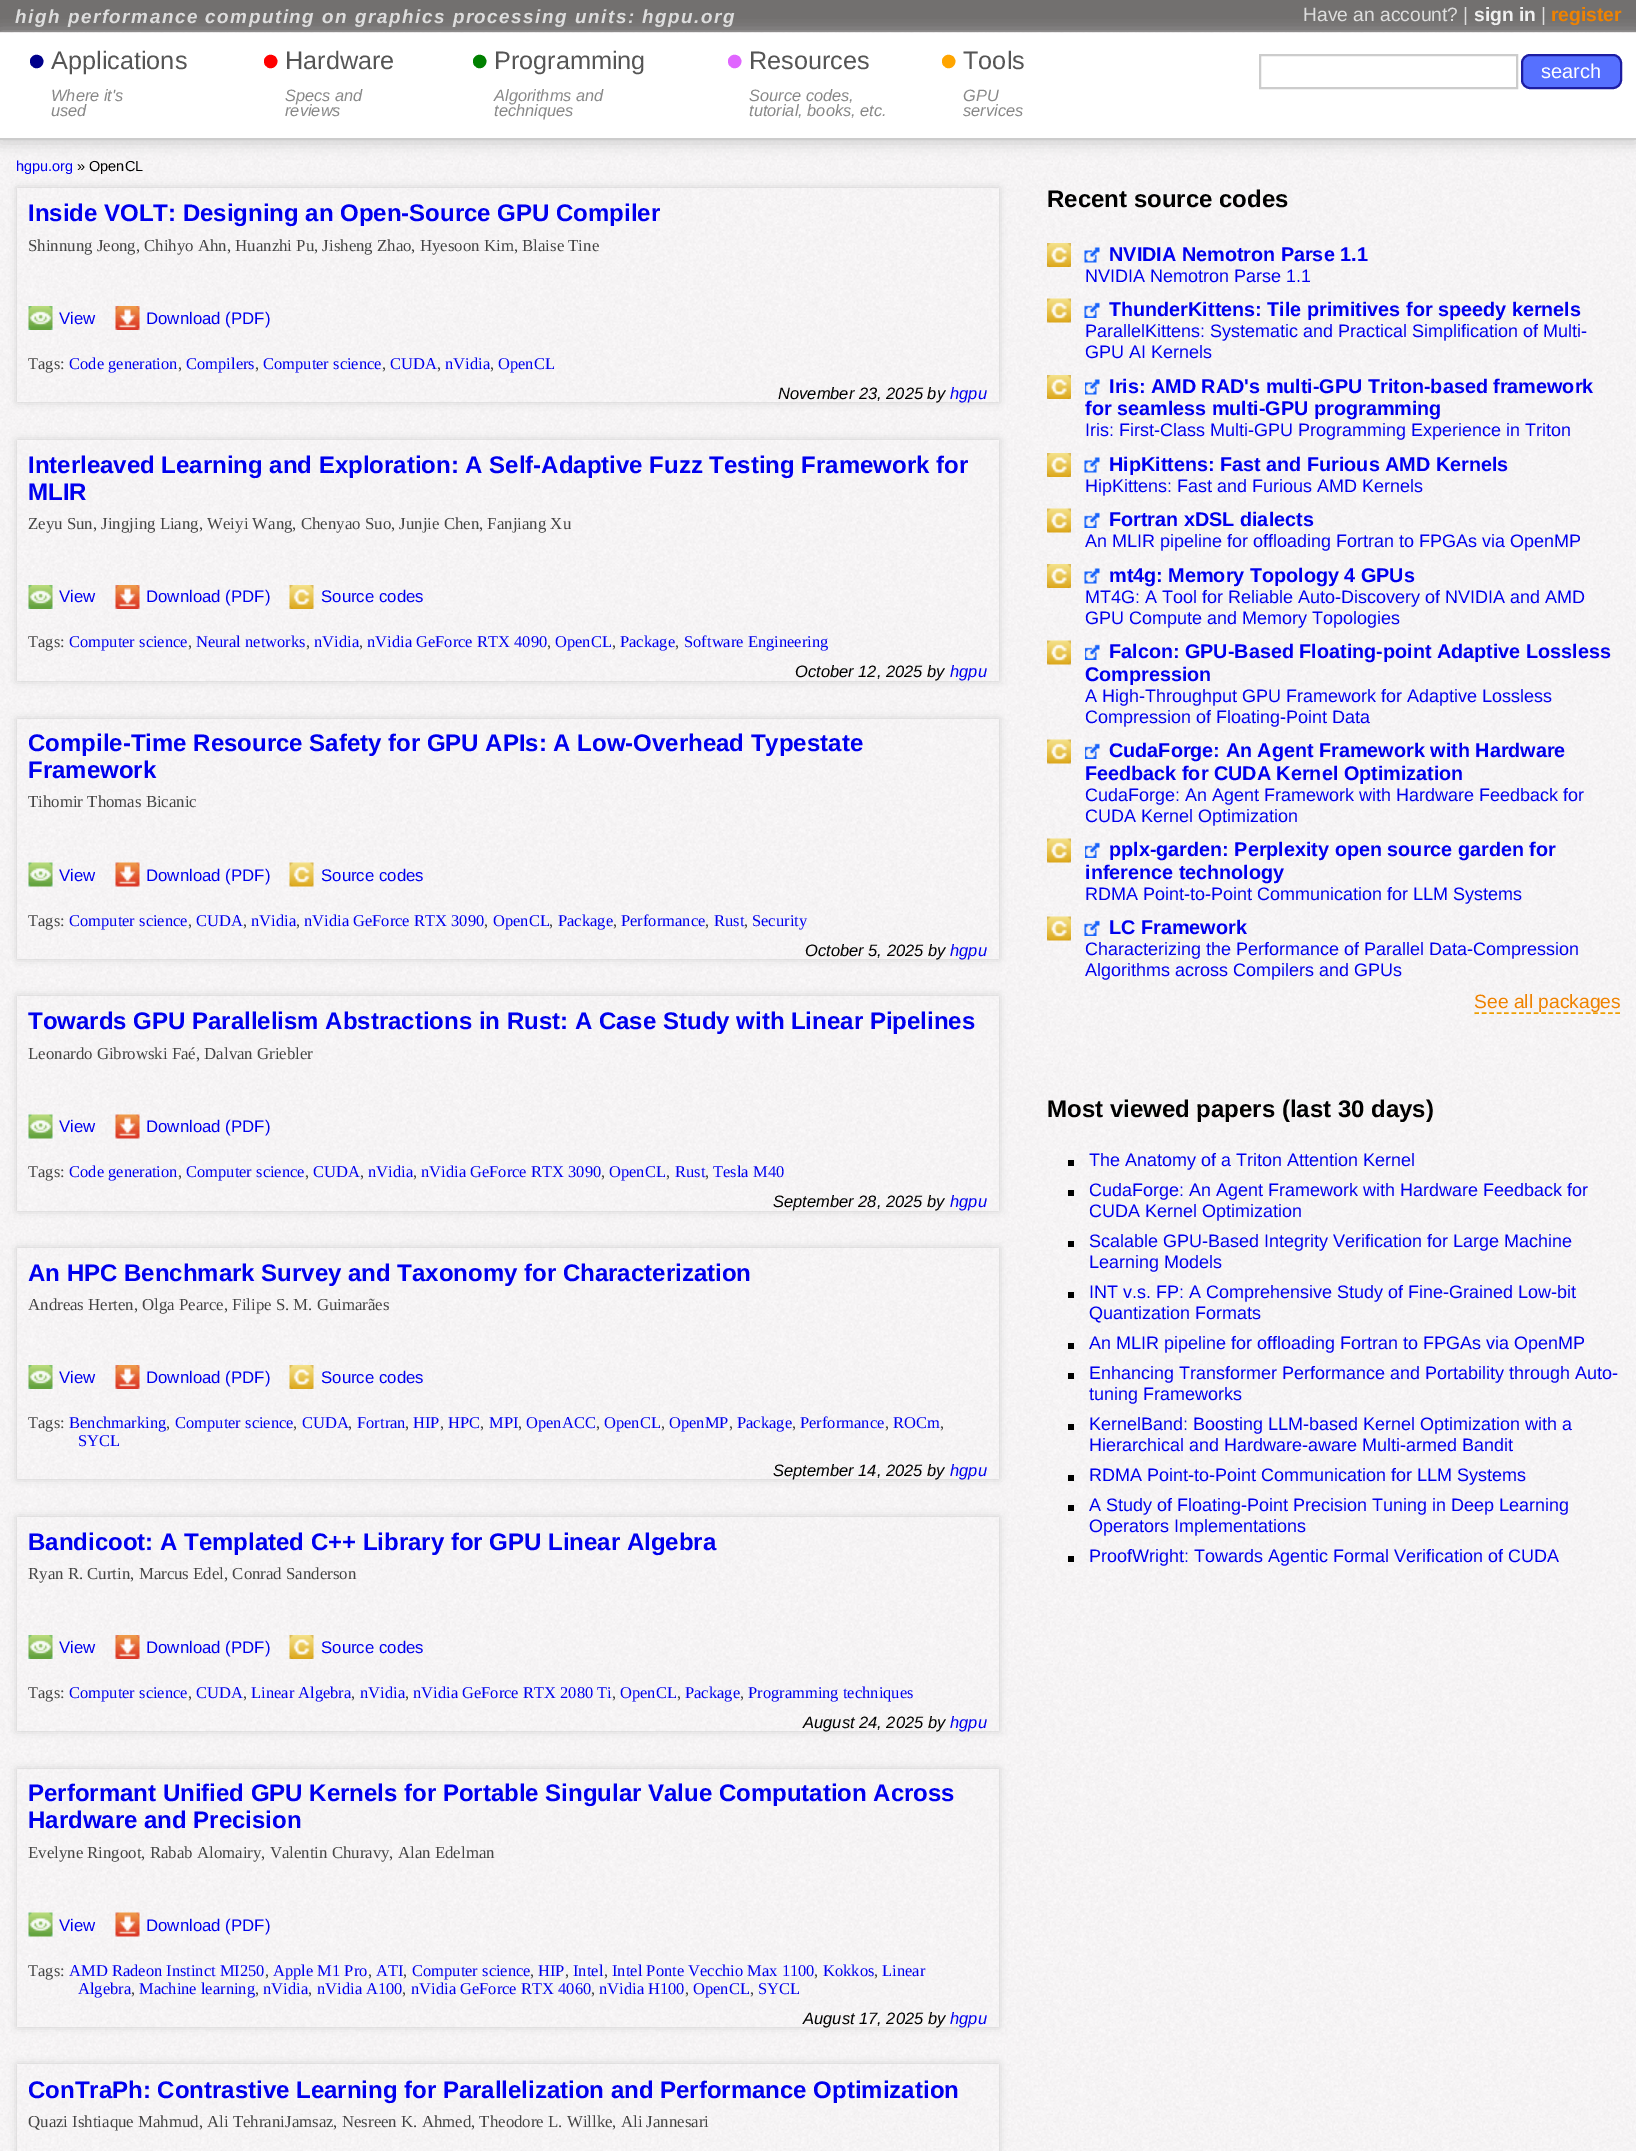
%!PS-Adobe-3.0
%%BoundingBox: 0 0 1636 2151
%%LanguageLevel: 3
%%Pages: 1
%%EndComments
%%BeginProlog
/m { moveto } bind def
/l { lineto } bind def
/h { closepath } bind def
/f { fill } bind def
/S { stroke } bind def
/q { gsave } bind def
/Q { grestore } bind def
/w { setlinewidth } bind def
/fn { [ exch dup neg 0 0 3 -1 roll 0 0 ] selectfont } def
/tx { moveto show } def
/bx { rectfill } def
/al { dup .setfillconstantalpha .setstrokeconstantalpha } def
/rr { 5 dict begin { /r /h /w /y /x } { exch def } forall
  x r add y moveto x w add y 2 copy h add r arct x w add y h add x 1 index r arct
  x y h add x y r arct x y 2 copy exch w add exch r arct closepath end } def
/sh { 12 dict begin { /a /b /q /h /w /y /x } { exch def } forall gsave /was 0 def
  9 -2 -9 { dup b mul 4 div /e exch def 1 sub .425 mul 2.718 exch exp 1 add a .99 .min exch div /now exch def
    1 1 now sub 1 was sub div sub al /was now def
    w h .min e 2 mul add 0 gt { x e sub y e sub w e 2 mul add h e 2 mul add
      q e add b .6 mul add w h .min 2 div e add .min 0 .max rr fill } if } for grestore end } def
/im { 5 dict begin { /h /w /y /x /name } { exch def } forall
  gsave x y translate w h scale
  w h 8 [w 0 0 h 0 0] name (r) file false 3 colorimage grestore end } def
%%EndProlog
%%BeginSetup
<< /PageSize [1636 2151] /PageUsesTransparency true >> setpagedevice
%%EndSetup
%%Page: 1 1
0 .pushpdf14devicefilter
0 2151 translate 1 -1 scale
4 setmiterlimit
1 setgray
0 0 1636 2151 bx
(image0.raw) 0 32 1636 2119 im
0.447 0.439 0.435 setrgbcolor
0 0 1636 32 bx
0.8 setgray
0 36 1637 107 0 7.5 1 sh
/LiberationSans-BoldItalic 18.9 fn
0.867 setgray
15 23 m 1.5 0 (high performance computing on graphics processing units: hgpu.org) ashow
/LiberationSans-Regular 19.25 fn
(Have an account? |) 1303 21 tx
/LiberationSans-Bold 19.25 fn
0.941 setgray
(sign in) 1474 21 tx
/LiberationSans-Regular 19.25 fn
0.867 setgray
(|) 1541 21 tx
/LiberationSans-Bold 19.25 fn
0.937 0.51 0 setrgbcolor
(register) 1551 21 tx
1 setgray
0 33 1636 105 bx
0.8 setgray
0 138 1636 2 bx
/LiberationSans-Regular 50 fn
0 0 0.545 setrgbcolor
(•) 28 78 tx
/LiberationSans-Regular 25.25 fn
0.333 setgray
(Applications) 51 69 tx
/LiberationSans-Italic 16.4 fn
0.533 setgray
(Where it's) 51 101 tx
(used) 51 116 tx
/LiberationSans-Regular 50 fn
1 0 0 setrgbcolor
(•) 262 78 tx
/LiberationSans-Regular 25.25 fn
0.333 setgray
(Hardware) 285 69 tx
/LiberationSans-Italic 16.4 fn
0.533 setgray
(Specs and) 285 101 tx
(reviews) 285 116 tx
/LiberationSans-Regular 50 fn
0 0.502 0 setrgbcolor
(•) 471 78 tx
/LiberationSans-Regular 25.25 fn
0.333 setgray
(Programming) 494 69 tx
/LiberationSans-Italic 16.4 fn
0.533 setgray
(Algorithms and) 494 101 tx
(techniques) 494 116 tx
/LiberationSans-Regular 50 fn
0.878 0.4 1 setrgbcolor
(•) 726 78 tx
/LiberationSans-Regular 25.25 fn
0.333 setgray
(Resources) 749 69 tx
/LiberationSans-Italic 16.4 fn
0.533 setgray
(Source codes,) 749 101 tx
(tutorial, books, etc.) 749 116 tx
/LiberationSans-Regular 50 fn
1 0.647 0 setrgbcolor
(•) 940 78 tx
/LiberationSans-Regular 25.25 fn
0.333 setgray
(Tools) 963 69 tx
/LiberationSans-Italic 16.4 fn
0.533 setgray
(GPU) 963 101 tx
(services) 963 116 tx
0.8 setgray
2 w
1260 55 257 33 rectstroke
0.337 0.439 1 setrgbcolor
1522 55 99 33 8 rr q f Q
0.114 0.114 0.639 setrgbcolor
S
/LiberationSans-Regular 20 fn
1 setgray
(search) 1541 78 tx
/LiberationSans-Regular 14.5 fn
0 0 0.933 setrgbcolor
(hgpu.org) 16 171 tx
0 setgray
(» OpenCL) 77 171 tx
q
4 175 m 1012 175 l 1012 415 l 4 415 l h 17 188 m 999 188 l 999 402 l 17 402 l h eoclip newpath
0.8 setgray
17 188 982 214 0 4 1 sh
Q
/LiberationSans-Bold 24 fn
0 0 0.933 setrgbcolor
(Inside VOLT: Designing an Open-Source GPU Compiler) 28 221 tx
/LiberationSerif-Regular 16.8 fn
0.267 setgray
(Shinnung Jeong, Chihyo Ahn, Huanzhi Pu, Jisheng Zhao, Hyesoon Kim, Blaise Tine) 28 251 tx
(image1.raw) 28 306 25 24 im
/LiberationSans-Regular 16.8 fn
0 0 0.933 setrgbcolor
(View) 59 324 tx
(image2.raw) 115 306 25 24 im
(Download \(PDF\)) 146 324 tx
/LiberationSerif-Regular 16.5 fn
0.267 setgray
(Tags:) 28 369 tx
0 0 0.933 setrgbcolor
(Code generation) 69 369 tx
0.267 setgray
(,) 178 369 tx
0 0 0.933 setrgbcolor
(Compilers) 186 369 tx
0.267 setgray
(,) 255 369 tx
0 0 0.933 setrgbcolor
(Computer science) 263 369 tx
0.267 setgray
(,) 382 369 tx
0 0 0.933 setrgbcolor
(CUDA) 390 369 tx
0.267 setgray
(,) 437 369 tx
0 0 0.933 setrgbcolor
(nVidia) 445 369 tx
0.267 setgray
(,) 490 369 tx
0 0 0.933 setrgbcolor
(OpenCL) 498 369 tx
/LiberationSans-Italic 16.5 fn
0 setgray
(November 23, 2025 by) 778 399 tx
0 0 0.933 setrgbcolor
(hgpu) 950 399 tx
q
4 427 m 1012 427 l 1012 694 l 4 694 l h 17 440 m 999 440 l 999 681 l 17 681 l h eoclip newpath
0.8 setgray
17 440 982 241 0 4 1 sh
Q
/LiberationSans-Bold 24 fn
(Interleaved Learning and Exploration: A Self-Adaptive Fuzz Testing Framework for) 28 473 tx
(MLIR) 28 500 tx
/LiberationSerif-Regular 16.8 fn
0.267 setgray
(Zeyu Sun, Jingjing Liang, Weiyi Wang, Chenyao Suo, Junjie Chen, Fanjiang Xu) 28 529 tx
(image3.raw) 28 585 25 24 im
/LiberationSans-Regular 16.8 fn
0 0 0.933 setrgbcolor
(View) 59 602 tx
(image4.raw) 115 585 25 24 im
(Download \(PDF\)) 146 602 tx
(image5.raw) 289 585 25 24 im
(Source codes) 321 602 tx
/LiberationSerif-Regular 16.5 fn
0.267 setgray
(Tags:) 28 647 tx
0 0 0.933 setrgbcolor
(Computer science) 69 647 tx
0.267 setgray
(,) 188 647 tx
0 0 0.933 setrgbcolor
(Neural networks) 196 647 tx
0.267 setgray
(,) 306 647 tx
0 0 0.933 setrgbcolor
(nVidia) 314 647 tx
0.267 setgray
(,) 359 647 tx
0 0 0.933 setrgbcolor
(nVidia GeForce RTX 4090) 367 647 tx
0.267 setgray
(,) 547 647 tx
0 0 0.933 setrgbcolor
(OpenCL) 555 647 tx
0.267 setgray
(,) 612 647 tx
0 0 0.933 setrgbcolor
(Package) 620 647 tx
0.267 setgray
(,) 675 647 tx
0 0 0.933 setrgbcolor
(Software Engineering) 684 647 tx
/LiberationSans-Italic 16.5 fn
0 setgray
(October 12, 2025 by) 795 677 tx
0 0 0.933 setrgbcolor
(hgpu) 950 677 tx
q
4 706 m 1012 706 l 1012 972 l 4 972 l h 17 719 m 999 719 l 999 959 l 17 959 l h eoclip newpath
0.8 setgray
17 719 982 240 0 4 1 sh
Q
/LiberationSans-Bold 24 fn
(Compile-Time Resource Safety for GPU APIs: A Low-Overhead Typestate) 28 751 tx
(Framework) 28 778 tx
/LiberationSerif-Regular 16.8 fn
0.267 setgray
(Tihomir Thomas Bicanic) 28 807 tx
(image6.raw) 28 862 25 25 im
/LiberationSans-Regular 16.8 fn
0 0 0.933 setrgbcolor
(View) 59 881 tx
(image7.raw) 115 862 25 25 im
(Download \(PDF\)) 146 881 tx
(image8.raw) 289 862 25 25 im
(Source codes) 321 881 tx
/LiberationSerif-Regular 16.5 fn
0.267 setgray
(Tags:) 28 926 tx
0 0 0.933 setrgbcolor
(Computer science) 69 926 tx
0.267 setgray
(,) 188 926 tx
0 0 0.933 setrgbcolor
(CUDA) 196 926 tx
0.267 setgray
(,) 243 926 tx
0 0 0.933 setrgbcolor
(nVidia) 251 926 tx
0.267 setgray
(,) 296 926 tx
0 0 0.933 setrgbcolor
(nVidia GeForce RTX 3090) 304 926 tx
0.267 setgray
(,) 484 926 tx
0 0 0.933 setrgbcolor
(OpenCL) 493 926 tx
0.267 setgray
(,) 549 926 tx
0 0 0.933 setrgbcolor
(Package) 558 926 tx
0.267 setgray
(,) 613 926 tx
0 0 0.933 setrgbcolor
(Performance) 621 926 tx
0.267 setgray
(,) 705 926 tx
0 0 0.933 setrgbcolor
(Rust) 714 926 tx
0.267 setgray
(,) 744 926 tx
0 0 0.933 setrgbcolor
(Security) 752 926 tx
/LiberationSans-Italic 16.5 fn
0 setgray
(October 5, 2025 by) 805 956 tx
0 0 0.933 setrgbcolor
(hgpu) 950 956 tx
q
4 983 m 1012 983 l 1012 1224 l 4 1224 l h 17 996 m 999 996 l 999 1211 l 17 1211 l h eoclip newpath
0.8 setgray
17 996 982 215 0 4 1 sh
Q
/LiberationSans-Bold 24 fn
(Towards GPU Parallelism Abstractions in Rust: A Case Study with Linear Pipelines) 28 1029 tx
/LiberationSerif-Regular 16.8 fn
0.267 setgray
(Leonardo Gibrowski Faé, Dalvan Griebler) 28 1059 tx
(image9.raw) 28 1114 25 25 im
/LiberationSans-Regular 16.8 fn
0 0 0.933 setrgbcolor
(View) 59 1132 tx
(image10.raw) 115 1114 25 25 im
(Download \(PDF\)) 146 1132 tx
/LiberationSerif-Regular 16.5 fn
0.267 setgray
(Tags:) 28 1177 tx
0 0 0.933 setrgbcolor
(Code generation) 69 1177 tx
0.267 setgray
(,) 178 1177 tx
0 0 0.933 setrgbcolor
(Computer science) 186 1177 tx
0.267 setgray
(,) 305 1177 tx
0 0 0.933 setrgbcolor
(CUDA) 313 1177 tx
0.267 setgray
(,) 360 1177 tx
0 0 0.933 setrgbcolor
(nVidia) 368 1177 tx
0.267 setgray
(,) 413 1177 tx
0 0 0.933 setrgbcolor
(nVidia GeForce RTX 3090) 421 1177 tx
0.267 setgray
(,) 601 1177 tx
0 0 0.933 setrgbcolor
(OpenCL) 609 1177 tx
0.267 setgray
(,) 666 1177 tx
0 0 0.933 setrgbcolor
(Rust) 675 1177 tx
0.267 setgray
(,) 705 1177 tx
0 0 0.933 setrgbcolor
(Tesla M40) 713 1177 tx
/LiberationSans-Italic 16.5 fn
0 setgray
(September 28, 2025 by) 773 1207 tx
0 0 0.933 setrgbcolor
(hgpu) 950 1207 tx
q
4 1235 m 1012 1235 l 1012 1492 l 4 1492 l h 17 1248 m 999 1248 l 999 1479 l 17 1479 l h eoclip newpath
0.8 setgray
17 1248 982 231 0 4 1 sh
Q
/LiberationSans-Bold 24 fn
(An HPC Benchmark Survey and Taxonomy for Characterization) 28 1281 tx
/LiberationSerif-Regular 16.8 fn
0.267 setgray
(Andreas Herten, Olga Pearce, Filipe S. M. Guimarães) 28 1310 tx
(image11.raw) 28 1365 25 24 im
/LiberationSans-Regular 16.8 fn
0 0 0.933 setrgbcolor
(View) 59 1383 tx
(image12.raw) 115 1365 25 24 im
(Download \(PDF\)) 146 1383 tx
(image13.raw) 289 1365 25 24 im
(Source codes) 321 1383 tx
/LiberationSerif-Regular 16.5 fn
0.267 setgray
(Tags:) 28 1428 tx
0 0 0.933 setrgbcolor
(Benchmarking) 69 1428 tx
0.267 setgray
(,) 166 1428 tx
0 0 0.933 setrgbcolor
(Computer science) 175 1428 tx
0.267 setgray
(,) 293 1428 tx
0 0 0.933 setrgbcolor
(CUDA) 302 1428 tx
0.267 setgray
(,) 348 1428 tx
0 0 0.933 setrgbcolor
(Fortran) 357 1428 tx
0.267 setgray
(,) 405 1428 tx
0 0 0.933 setrgbcolor
(HIP) 413 1428 tx
0.267 setgray
(,) 440 1428 tx
0 0 0.933 setrgbcolor
(HPC) 448 1428 tx
0.267 setgray
(,) 480 1428 tx
0 0 0.933 setrgbcolor
(MPI) 489 1428 tx
0.267 setgray
(,) 518 1428 tx
0 0 0.933 setrgbcolor
(OpenACC) 526 1428 tx
0.267 setgray
(,) 596 1428 tx
0 0 0.933 setrgbcolor
(OpenCL) 604 1428 tx
0.267 setgray
(,) 661 1428 tx
0 0 0.933 setrgbcolor
(OpenMP) 669 1428 tx
0.267 setgray
(,) 729 1428 tx
0 0 0.933 setrgbcolor
(Package) 737 1428 tx
0.267 setgray
(,) 792 1428 tx
0 0 0.933 setrgbcolor
(Performance) 800 1428 tx
0.267 setgray
(,) 885 1428 tx
0 0 0.933 setrgbcolor
(ROCm) 893 1428 tx
0.267 setgray
(,) 940 1428 tx
0 0 0.933 setrgbcolor
(SYCL) 78 1446 tx
/LiberationSans-Italic 16.5 fn
0 setgray
(September 14, 2025 by) 773 1476 tx
0 0 0.933 setrgbcolor
(hgpu) 950 1476 tx
q
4 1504 m 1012 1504 l 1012 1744 l 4 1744 l h 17 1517 m 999 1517 l 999 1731 l 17 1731 l h eoclip newpath
0.8 setgray
17 1517 982 214 0 4 1 sh
Q
/LiberationSans-Bold 24 fn
(Bandicoot: A Templated C++ Library for GPU Linear Algebra) 28 1550 tx
/LiberationSerif-Regular 16.8 fn
0.267 setgray
(Ryan R. Curtin, Marcus Edel, Conrad Sanderson) 28 1579 tx
(image3.raw) 28 1635 25 24 im
/LiberationSans-Regular 16.8 fn
0 0 0.933 setrgbcolor
(View) 59 1653 tx
(image4.raw) 115 1635 25 24 im
(Download \(PDF\)) 146 1653 tx
(image5.raw) 289 1635 25 24 im
(Source codes) 321 1653 tx
/LiberationSerif-Regular 16.5 fn
0.267 setgray
(Tags:) 28 1698 tx
0 0 0.933 setrgbcolor
(Computer science) 69 1698 tx
0.267 setgray
(,) 188 1698 tx
0 0 0.933 setrgbcolor
(CUDA) 196 1698 tx
0.267 setgray
(,) 243 1698 tx
0 0 0.933 setrgbcolor
(Linear Algebra) 251 1698 tx
0.267 setgray
(,) 351 1698 tx
0 0 0.933 setrgbcolor
(nVidia) 360 1698 tx
0.267 setgray
(,) 405 1698 tx
0 0 0.933 setrgbcolor
(nVidia GeForce RTX 2080 Ti) 413 1698 tx
0.267 setgray
(,) 612 1698 tx
0 0 0.933 setrgbcolor
(OpenCL) 620 1698 tx
0.267 setgray
(,) 677 1698 tx
0 0 0.933 setrgbcolor
(Package) 685 1698 tx
0.267 setgray
(,) 740 1698 tx
0 0 0.933 setrgbcolor
(Programming techniques) 748 1698 tx
/LiberationSans-Italic 16.5 fn
0 setgray
(August 24, 2025 by) 803 1728 tx
0 0 0.933 setrgbcolor
(hgpu) 950 1728 tx
q
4 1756 m 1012 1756 l 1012 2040 l 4 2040 l h 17 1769 m 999 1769 l 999 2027 l 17 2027 l h eoclip newpath
0.8 setgray
17 1769 982 258 0 4 1 sh
Q
/LiberationSans-Bold 24 fn
(Performant Unified GPU Kernels for Portable Singular Value Computation Across) 28 1801 tx
(Hardware and Precision) 28 1828 tx
/LiberationSerif-Regular 16.8 fn
0.267 setgray
(Evelyne Ringoot, Rabab Alomairy, Valentin Churavy, Alan Edelman) 28 1858 tx
(image6.raw) 28 1912 25 25 im
/LiberationSans-Regular 16.8 fn
0 0 0.933 setrgbcolor
(View) 59 1931 tx
(image7.raw) 115 1912 25 25 im
(Download \(PDF\)) 146 1931 tx
/LiberationSerif-Regular 16.5 fn
0.267 setgray
(Tags:) 28 1976 tx
0 0 0.933 setrgbcolor
(AMD Radeon Instinct MI250) 69 1976 tx
0.267 setgray
(,) 265 1976 tx
0 0 0.933 setrgbcolor
(Apple M1 Pro) 273 1976 tx
0.267 setgray
(,) 368 1976 tx
0 0 0.933 setrgbcolor
(ATI) 376 1976 tx
0.267 setgray
(,) 403 1976 tx
0 0 0.933 setrgbcolor
(Computer science) 412 1976 tx
0.267 setgray
(,) 530 1976 tx
0 0 0.933 setrgbcolor
(HIP) 538 1976 tx
0.267 setgray
(,) 565 1976 tx
0 0 0.933 setrgbcolor
(Intel) 573 1976 tx
0.267 setgray
(,) 604 1976 tx
0 0 0.933 setrgbcolor
(Intel Ponte Vecchio Max 1100) 612 1976 tx
0.267 setgray
(,) 814 1976 tx
0 0 0.933 setrgbcolor
(Kokkos) 823 1976 tx
0.267 setgray
(,) 874 1976 tx
0 0 0.933 setrgbcolor
(Linear) 882 1976 tx
(Algebra) 78 1994 tx
0.267 setgray
(,) 131 1994 tx
0 0 0.933 setrgbcolor
(Machine learning) 139 1994 tx
0.267 setgray
(,) 255 1994 tx
0 0 0.933 setrgbcolor
(nVidia) 263 1994 tx
0.267 setgray
(,) 308 1994 tx
0 0 0.933 setrgbcolor
(nVidia A100) 317 1994 tx
0.267 setgray
(,) 402 1994 tx
0 0 0.933 setrgbcolor
(nVidia GeForce RTX 4060) 411 1994 tx
0.267 setgray
(,) 591 1994 tx
0 0 0.933 setrgbcolor
(nVidia H100) 599 1994 tx
0.267 setgray
(,) 685 1994 tx
0 0 0.933 setrgbcolor
(OpenCL) 693 1994 tx
0.267 setgray
(,) 750 1994 tx
0 0 0.933 setrgbcolor
(SYCL) 758 1994 tx
/LiberationSans-Italic 16.5 fn
0 setgray
(August 17, 2025 by) 803 2024 tx
0 0 0.933 setrgbcolor
(hgpu) 950 2024 tx
q
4 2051 m 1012 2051 l 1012 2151 l 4 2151 l h 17 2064 m 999 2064 l 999 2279 l 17 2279 l h eoclip newpath
0.8 setgray
17 2064 982 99 0 4 1 sh
Q
/LiberationSans-Bold 24 fn
(ConTraPh: Contrastive Learning for Parallelization and Performance Optimization) 28 2098 tx
/LiberationSerif-Regular 16.8 fn
0.267 setgray
(Quazi Ishtiaque Mahmud, Ali TehraniJamsaz, Nesreen K. Ahmed, Theodore L. Willke, Ali Jannesari) 28 2127 tx
/LiberationSans-Bold 24 fn
0 setgray
(Recent source codes) 1047 207 tx
(image14.raw) 1047 243 24 24 im
(image15.raw) 1084 247 16 16 im
/LiberationSans-Bold 19.8 fn
0 0 0.933 setrgbcolor
(NVIDIA Nemotron Parse 1.1) 1109 261 tx
/LiberationSans-Regular 18 fn
(NVIDIA Nemotron Parse 1.1) 1085 282 tx
(image16.raw) 1047 298 24 25 im
(image17.raw) 1084 302 16 16 im
/LiberationSans-Bold 19.8 fn
(ThunderKittens: Tile primitives for speedy kernels) 1109 316 tx
/LiberationSans-Regular 18 fn
(ParallelKittens: Systematic and Practical Simplification of Multi-) 1085 337 tx
(GPU AI Kernels) 1085 358 tx
(image14.raw) 1047 375 24 24 im
(image18.raw) 1085 379 15 16 im
/LiberationSans-Bold 19.8 fn
(Iris: AMD RAD's multi-GPU Triton-based framework) 1109 393 tx
(for seamless multi-GPU programming) 1085 415 tx
/LiberationSans-Regular 18 fn
(Iris: First-Class Multi-GPU Programming Experience in Triton) 1085 436 tx
(image14.raw) 1047 453 24 24 im
(image19.raw) 1084 457 16 16 im
/LiberationSans-Bold 19.8 fn
(HipKittens: Fast and Furious AMD Kernels) 1109 471 tx
/LiberationSans-Regular 18 fn
(HipKittens: Fast and Furious AMD Kernels) 1085 492 tx
(image20.raw) 1047 508 24 25 im
(image21.raw) 1084 512 16 16 im
/LiberationSans-Bold 19.8 fn
(Fortran xDSL dialects) 1109 526 tx
/LiberationSans-Regular 18 fn
(An MLIR pipeline for offloading Fortran to FPGAs via OpenMP) 1085 547 tx
(image14.raw) 1047 564 24 24 im
(image22.raw) 1084 568 16 16 im
/LiberationSans-Bold 19.8 fn
(mt4g: Memory Topology 4 GPUs) 1109 582 tx
/LiberationSans-Regular 18 fn
(MT4G: A Tool for Reliable Auto-Discovery of NVIDIA and AMD) 1085 603 tx
(GPU Compute and Memory Topologies) 1085 624 tx
(image23.raw) 1047 640 24 25 im
(image24.raw) 1085 644 15 16 im
/LiberationSans-Bold 19.8 fn
(Falcon: GPU-Based Floating-point Adaptive Lossless) 1109 658 tx
(Compression) 1085 681 tx
/LiberationSans-Regular 18 fn
(A High-Throughput GPU Framework for Adaptive Lossless) 1085 702 tx
(Compression of Floating-Point Data) 1085 723 tx
(image25.raw) 1047 739 24 25 im
(image26.raw) 1085 743 15 16 im
/LiberationSans-Bold 19.8 fn
(CudaForge: An Agent Framework with Hardware) 1109 757 tx
(Feedback for CUDA Kernel Optimization) 1085 780 tx
/LiberationSans-Regular 18 fn
(CudaForge: An Agent Framework with Hardware Feedback for) 1085 801 tx
(CUDA Kernel Optimization) 1085 822 tx
(image27.raw) 1047 838 24 25 im
(image28.raw) 1085 842 15 16 im
/LiberationSans-Bold 19.8 fn
(pplx-garden: Perplexity open source garden for) 1109 856 tx
(inference technology) 1085 879 tx
/LiberationSans-Regular 18 fn
(RDMA Point-to-Point Communication for LLM Systems) 1085 900 tx
(image29.raw) 1047 916 24 25 im
(image30.raw) 1084 920 16 16 im
/LiberationSans-Bold 19.8 fn
(LC Framework) 1109 934 tx
/LiberationSans-Regular 18 fn
(Characterizing the Performance of Parallel Data-Compression) 1085 955 tx
(Algorithms across Compilers and GPUs) 1085 976 tx
/LiberationSans-Regular 19.25 fn
0.937 0.51 0 setrgbcolor
(See all packages) 1474 1008 tx
0.933 0.62 0 setrgbcolor
1.5 w
[4.5 2.92] 0 setdash
1474.5 1013 m 1620 1013 l S
/LiberationSans-Bold 24 fn
0 setgray
(Most viewed papers \(last 30 days\)) 1047 1117 tx
1068 1160 6 6 bx
/LiberationSans-Regular 18 fn
0 0 0.933 setrgbcolor
(The Anatomy of a Triton Attention Kernel) 1089 1166 tx
0 setgray
1068 1190 6 6 bx
0 0 0.933 setrgbcolor
(CudaForge: An Agent Framework with Hardware Feedback for) 1089 1196 tx
(CUDA Kernel Optimization) 1089 1217 tx
0 setgray
1068 1241 6 6 bx
0 0 0.933 setrgbcolor
(Scalable GPU-Based Integrity Verification for Large Machine) 1089 1247 tx
(Learning Models) 1089 1268 tx
0 setgray
1068 1292 6 6 bx
0 0 0.933 setrgbcolor
(INT v.s. FP: A Comprehensive Study of Fine-Grained Low-bit) 1089 1298 tx
(Quantization Formats) 1089 1319 tx
0 setgray
1068 1343 6 6 bx
0 0 0.933 setrgbcolor
(An MLIR pipeline for offloading Fortran to FPGAs via OpenMP) 1089 1349 tx
0 setgray
1068 1373 6 6 bx
0 0 0.933 setrgbcolor
(Enhancing Transformer Performance and Portability through Auto-) 1089 1379 tx
(tuning Frameworks) 1089 1400 tx
0 setgray
1068 1424 6 6 bx
0 0 0.933 setrgbcolor
(KernelBand: Boosting LLM-based Kernel Optimization with a) 1089 1430 tx
(Hierarchical and Hardware-aware Multi-armed Bandit) 1089 1451 tx
0 setgray
1068 1475 6 6 bx
0 0 0.933 setrgbcolor
(RDMA Point-to-Point Communication for LLM Systems) 1089 1481 tx
0 setgray
1068 1505 6 6 bx
0 0 0.933 setrgbcolor
(A Study of Floating-Point Precision Tuning in Deep Learning) 1089 1511 tx
(Operators Implementations) 1089 1532 tx
0 setgray
1068 1556 6 6 bx
0 0 0.933 setrgbcolor
(ProofWright: Towards Agentic Formal Verification of CUDA) 1089 1562 tx
.poppdf14devicefilter showpage
%%EOF
